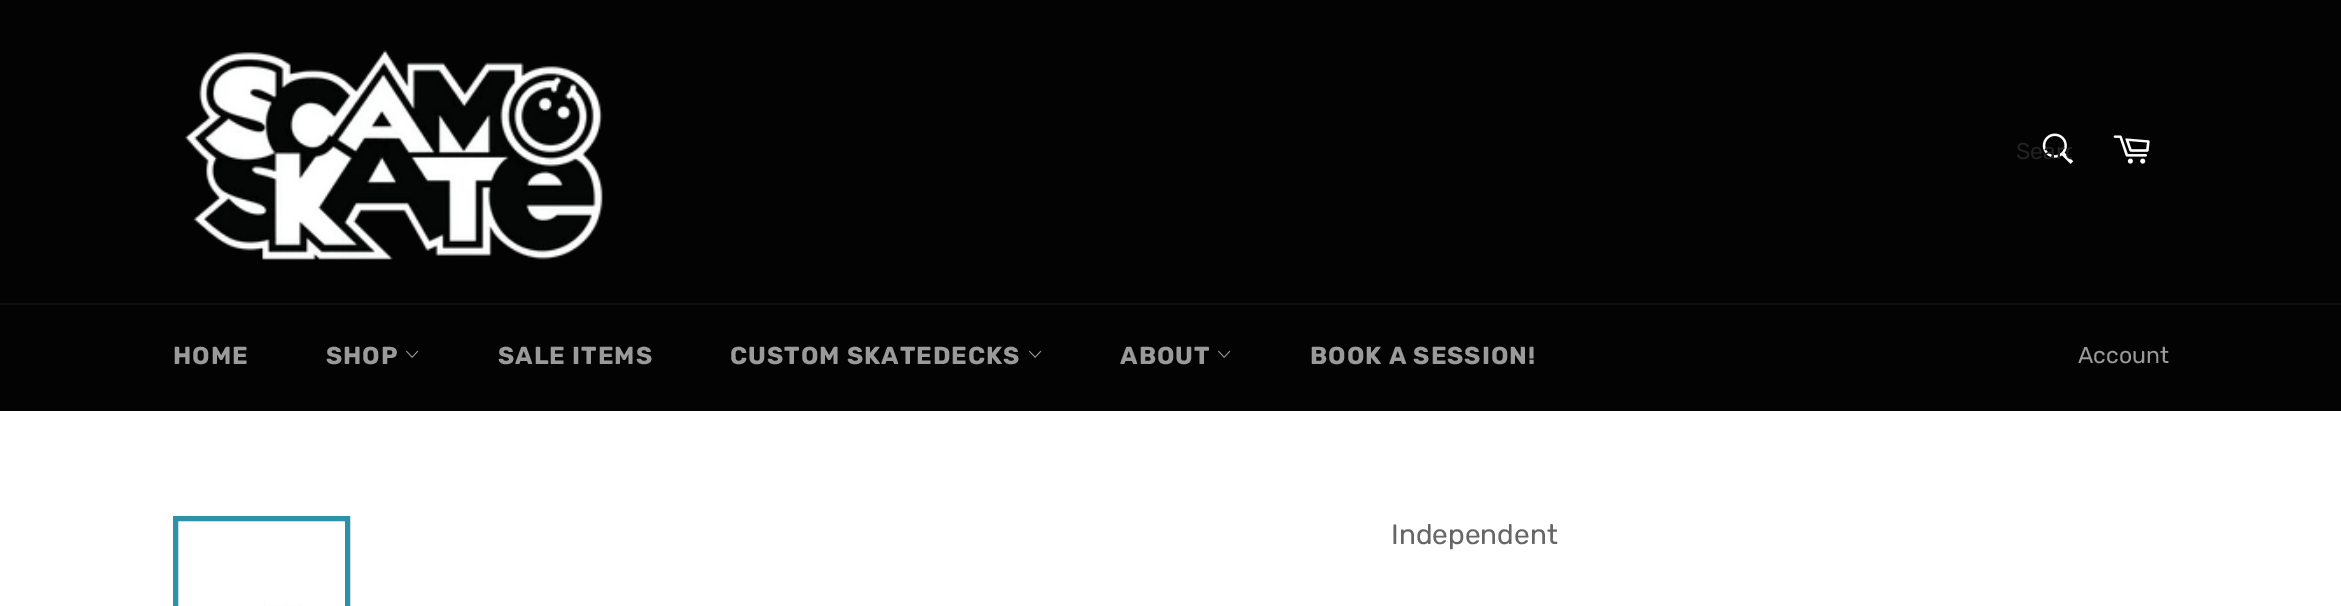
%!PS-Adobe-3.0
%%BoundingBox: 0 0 2341 606
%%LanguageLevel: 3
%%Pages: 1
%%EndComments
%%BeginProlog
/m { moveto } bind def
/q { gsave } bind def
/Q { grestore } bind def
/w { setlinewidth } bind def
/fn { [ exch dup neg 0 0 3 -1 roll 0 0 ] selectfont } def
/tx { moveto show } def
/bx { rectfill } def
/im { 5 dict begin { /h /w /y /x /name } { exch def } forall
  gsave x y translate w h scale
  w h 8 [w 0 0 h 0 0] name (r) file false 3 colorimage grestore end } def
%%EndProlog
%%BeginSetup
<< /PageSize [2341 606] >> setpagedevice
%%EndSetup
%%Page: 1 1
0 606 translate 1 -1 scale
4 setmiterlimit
0.012 setgray
0 0 2341 606 bx
(image0.raw) 185 50 418 211 im
(image1.raw) 2042 133 32 31 im
q
2016 138 56 27 rectclip
/Rubik-Regular 23 fn
0.133 setgray
(Searc) 2016 159 tx
Q
(image2.raw) 2113 135 37 29 im
0.063 setgray
0 303 2341 2 bx
/Rubik-Bold 24.5 fn
0.604 setgray
173 364 m 1 0 (HOME) ashow
326 364 m 1 0 (SHOP) ashow
(image3.raw) 406 350 13 8 im
498 364 m 1 0 (SALE ITEMS) ashow
730 364 m 1 0 (CUSTOM SKATEDECKS) ashow
(image3.raw) 1029 350 13 8 im
1120 364 m 1 0 (ABOUT) ashow
(image3.raw) 1218 350 13 8 im
1310 364 m 1 0 (BOOK A SESSION!) ashow
/Rubik-Regular 23 fn
(Account) 2078 363 tx
1 setgray
0 411 2341 195 bx
(image4.raw) 264 605 38 1 im
0.176 0.569 0.659 setrgbcolor
5 w
175.5 518.5 172 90 rectstroke
/Rubik-Regular 28 fn
0.4 setgray
(Independent) 1391 544 tx
showpage
%%EOF
